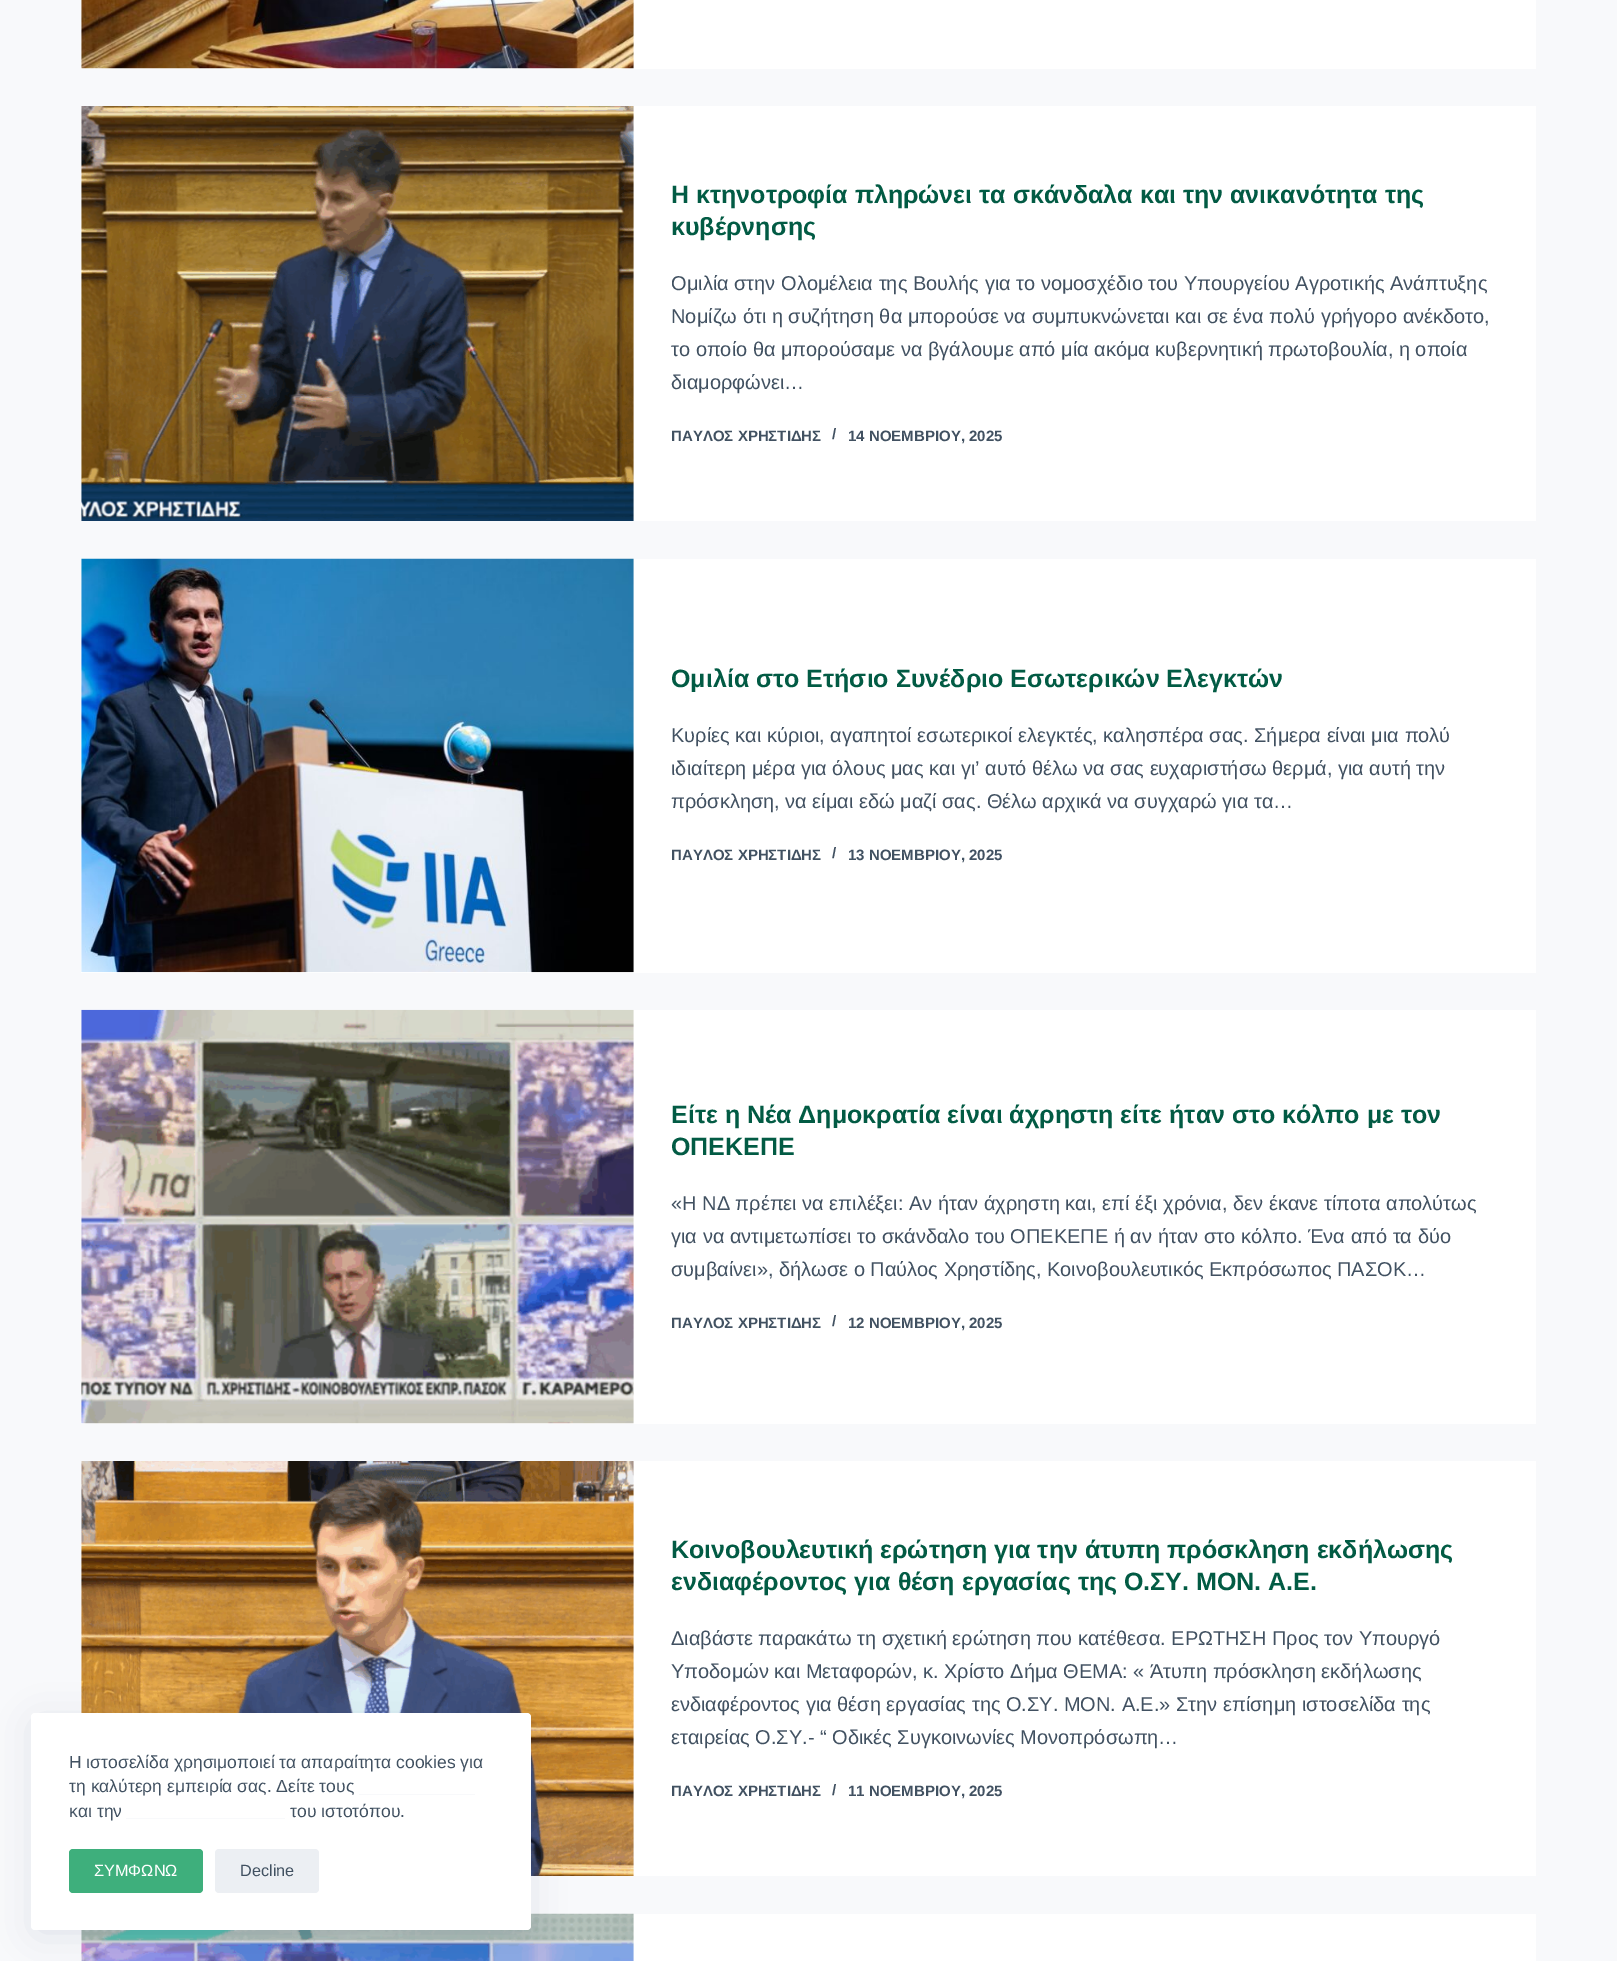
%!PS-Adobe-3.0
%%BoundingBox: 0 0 1617 1961
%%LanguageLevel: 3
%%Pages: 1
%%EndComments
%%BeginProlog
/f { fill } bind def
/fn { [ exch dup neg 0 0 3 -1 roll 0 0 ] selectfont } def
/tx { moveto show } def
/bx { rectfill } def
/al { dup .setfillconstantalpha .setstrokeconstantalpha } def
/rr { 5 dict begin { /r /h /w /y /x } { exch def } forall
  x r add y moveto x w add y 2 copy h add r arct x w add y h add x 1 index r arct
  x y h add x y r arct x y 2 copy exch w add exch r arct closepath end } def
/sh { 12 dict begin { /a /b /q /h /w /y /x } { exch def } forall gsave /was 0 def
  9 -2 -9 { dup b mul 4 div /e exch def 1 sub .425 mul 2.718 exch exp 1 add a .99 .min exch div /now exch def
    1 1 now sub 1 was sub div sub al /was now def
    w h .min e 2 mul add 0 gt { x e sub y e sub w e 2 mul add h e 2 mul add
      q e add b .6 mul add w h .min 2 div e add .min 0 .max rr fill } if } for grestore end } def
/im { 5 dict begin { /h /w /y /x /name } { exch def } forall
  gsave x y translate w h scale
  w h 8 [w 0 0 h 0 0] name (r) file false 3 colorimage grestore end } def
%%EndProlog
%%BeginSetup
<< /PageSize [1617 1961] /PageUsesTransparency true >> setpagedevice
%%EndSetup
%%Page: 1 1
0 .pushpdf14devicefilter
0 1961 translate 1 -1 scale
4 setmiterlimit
0.973 0.976 0.984 setrgbcolor
0 0 1617 1961 bx
1 setgray
81 0 1455 69 bx
(image0.raw) 81 0 553 69 im
81 106 1455 415 bx
(image1.raw) 81 106 553 415 im
/LiberationSans-Bold 25 fn
0.008 0.357 0.267 setrgbcolor
(Η κτηνοτροφία πληρώνει τα σκάνδαλα και την ανικανότητα της) 671 203 tx
(κυβέρνησης) 671 235 tx
/LiberationSans-Regular 20 fn
0.255 0.318 0.38 setrgbcolor
(Ομιλία στην Ολομέλεια της Βουλής για το νομοσχέδιο του Υπουργείου Αγροτικής Ανάπτυξης) 671 290 tx
(Νομίζω ότι η συζήτηση θα μπορούσε να συμπυκνώνεται και σε ένα πολύ γρήγορο ανέκδοτο,) 671 323 tx
(το οποίο θα μπορούσαμε να βγάλουμε από μία ακόμα κυβερνητική πρωτοβουλία, η οποία) 671 356 tx
(διαμορφώνει…) 671 389 tx
/LiberationSans-Bold 15 fn
(ΠΑΥΛΟΣ ΧΡΗΣΤΙΔΗΣ) 671 441 tx
(/) 832 439 tx
(14 ΝΟΕΜΒΡΙΟΥ, 2025) 848 441 tx
1 setgray
81 559 1455 414 bx
(image2.raw) 81 558 553 415 im
/LiberationSans-Bold 25 fn
0.008 0.357 0.267 setrgbcolor
(Ομιλία στο Ετήσιο Συνέδριο Εσωτερικών Ελεγκτών) 671 687 tx
/LiberationSans-Regular 20 fn
0.255 0.318 0.38 setrgbcolor
(Κυρίες και κύριοι, αγαπητοί εσωτερικοί ελεγκτές, καλησπέρα σας. Σήμερα είναι μια πολύ) 671 742 tx
(ιδιαίτερη μέρα για όλους μας και γι’ αυτό θέλω να σας ευχαριστήσω θερμά, για αυτή την) 671 775 tx
(πρόσκληση, να είμαι εδώ μαζί σας. Θέλω αρχικά να συγχαρώ για τα…) 671 808 tx
/LiberationSans-Bold 15 fn
(ΠΑΥΛΟΣ ΧΡΗΣΤΙΔΗΣ) 671 860 tx
(/) 832 858 tx
(13 ΝΟΕΜΒΡΙΟΥ, 2025) 848 860 tx
1 setgray
81 1010 1455 414 bx
(image3.raw) 81 1009 553 415 im
/LiberationSans-Bold 25 fn
0.008 0.357 0.267 setrgbcolor
(Είτε η Νέα Δημοκρατία είναι άχρηστη είτε ήταν στο κόλπο με τον) 671 1123 tx
(ΟΠΕΚΕΠΕ) 671 1155 tx
/LiberationSans-Regular 20 fn
0.255 0.318 0.38 setrgbcolor
(«Η ΝΔ πρέπει να επιλέξει: Αν ήταν άχρηστη και, επί έξι χρόνια, δεν έκανε τίποτα απολύτως) 671 1210 tx
(για να αντιμετωπίσει το σκάνδαλο του ΟΠΕΚΕΠΕ ή αν ήταν στο κόλπο. Ένα από τα δύο) 671 1243 tx
(συμβαίνει», δήλωσε ο Παύλος Χρηστίδης, Κοινοβουλευτικός Εκπρόσωπος ΠΑΣΟΚ…) 671 1276 tx
/LiberationSans-Bold 15 fn
(ΠΑΥΛΟΣ ΧΡΗΣΤΙΔΗΣ) 671 1328 tx
(/) 832 1326 tx
(12 ΝΟΕΜΒΡΙΟΥ, 2025) 848 1328 tx
1 setgray
81 1461 1455 415 bx
(image4.raw) 81 1461 553 415 im
/LiberationSans-Bold 25 fn
0.008 0.357 0.267 setrgbcolor
(Κοινοβουλευτική ερώτηση για την άτυπη πρόσκληση εκδήλωσης) 671 1558 tx
(ενδιαφέροντος για θέση εργασίας της Ο.ΣΥ. ΜΟΝ. Α.Ε.) 671 1590 tx
/LiberationSans-Regular 20 fn
0.255 0.318 0.38 setrgbcolor
(Διαβάστε παρακάτω τη σχετική ερώτηση που κατέθεσα. ΕΡΩΤΗΣΗ Προς τον Υπουργό) 671 1645 tx
(Υποδομών και Μεταφορών, κ. Χρίστο Δήμα ΘΕΜΑ: « Άτυπη πρόσκληση εκδήλωσης) 671 1678 tx
(ενδιαφέροντος για θέση εργασίας της Ο.ΣΥ. ΜΟΝ. Α.Ε.» Στην επίσημη ιστοσελίδα της) 671 1711 tx
(εταιρείας Ο.ΣΥ.- “ Οδικές Συγκοινωνίες Μονοπρόσωπη…) 671 1744 tx
/LiberationSans-Bold 15 fn
(ΠΑΥΛΟΣ ΧΡΗΣΤΙΔΗΣ) 671 1796 tx
(/) 832 1795 tx
(11 ΝΟΕΜΒΡΙΟΥ, 2025) 848 1796 tx
1 setgray
81 1914 1455 47 bx
(image5.raw) 81 1913 553 48 im
0.133 0.22 0.396 setrgbcolor
38 1725 487 205 0 19 0.15 sh
1 setgray
31 1713 500 217 4 rr f
/LiberationSans-Regular 17.5 fn
0.255 0.318 0.38 setrgbcolor
(Η ιστοσελίδα χρησιμοποιεί τα απαραίτητα cookies για) 69 1768 tx
(τη καλύτερη εμπειρία σας. Δείτε τους) 69 1792 tx
0.973 0.976 0.984 setrgbcolor
359 1794 116 1 bx
0.255 0.318 0.38 setrgbcolor
(και την) 69 1817 tx
0.973 0.976 0.984 setrgbcolor
126 1818 159 1 bx
0.255 0.318 0.38 setrgbcolor
(του ιστοτόπου.) 290 1817 tx
0.243 0.686 0.486 setrgbcolor
69 1849 134 44 4 rr f
/LiberationSans-Regular 16.25 fn
1 setgray
(ΣΥΜΦΩΝΩ) 94 1876 tx
0.925 0.937 0.953 setrgbcolor
215 1849 104 44 4 rr f
0.255 0.318 0.38 setrgbcolor
(Decline) 240 1876 tx
.poppdf14devicefilter showpage
%%EOF
